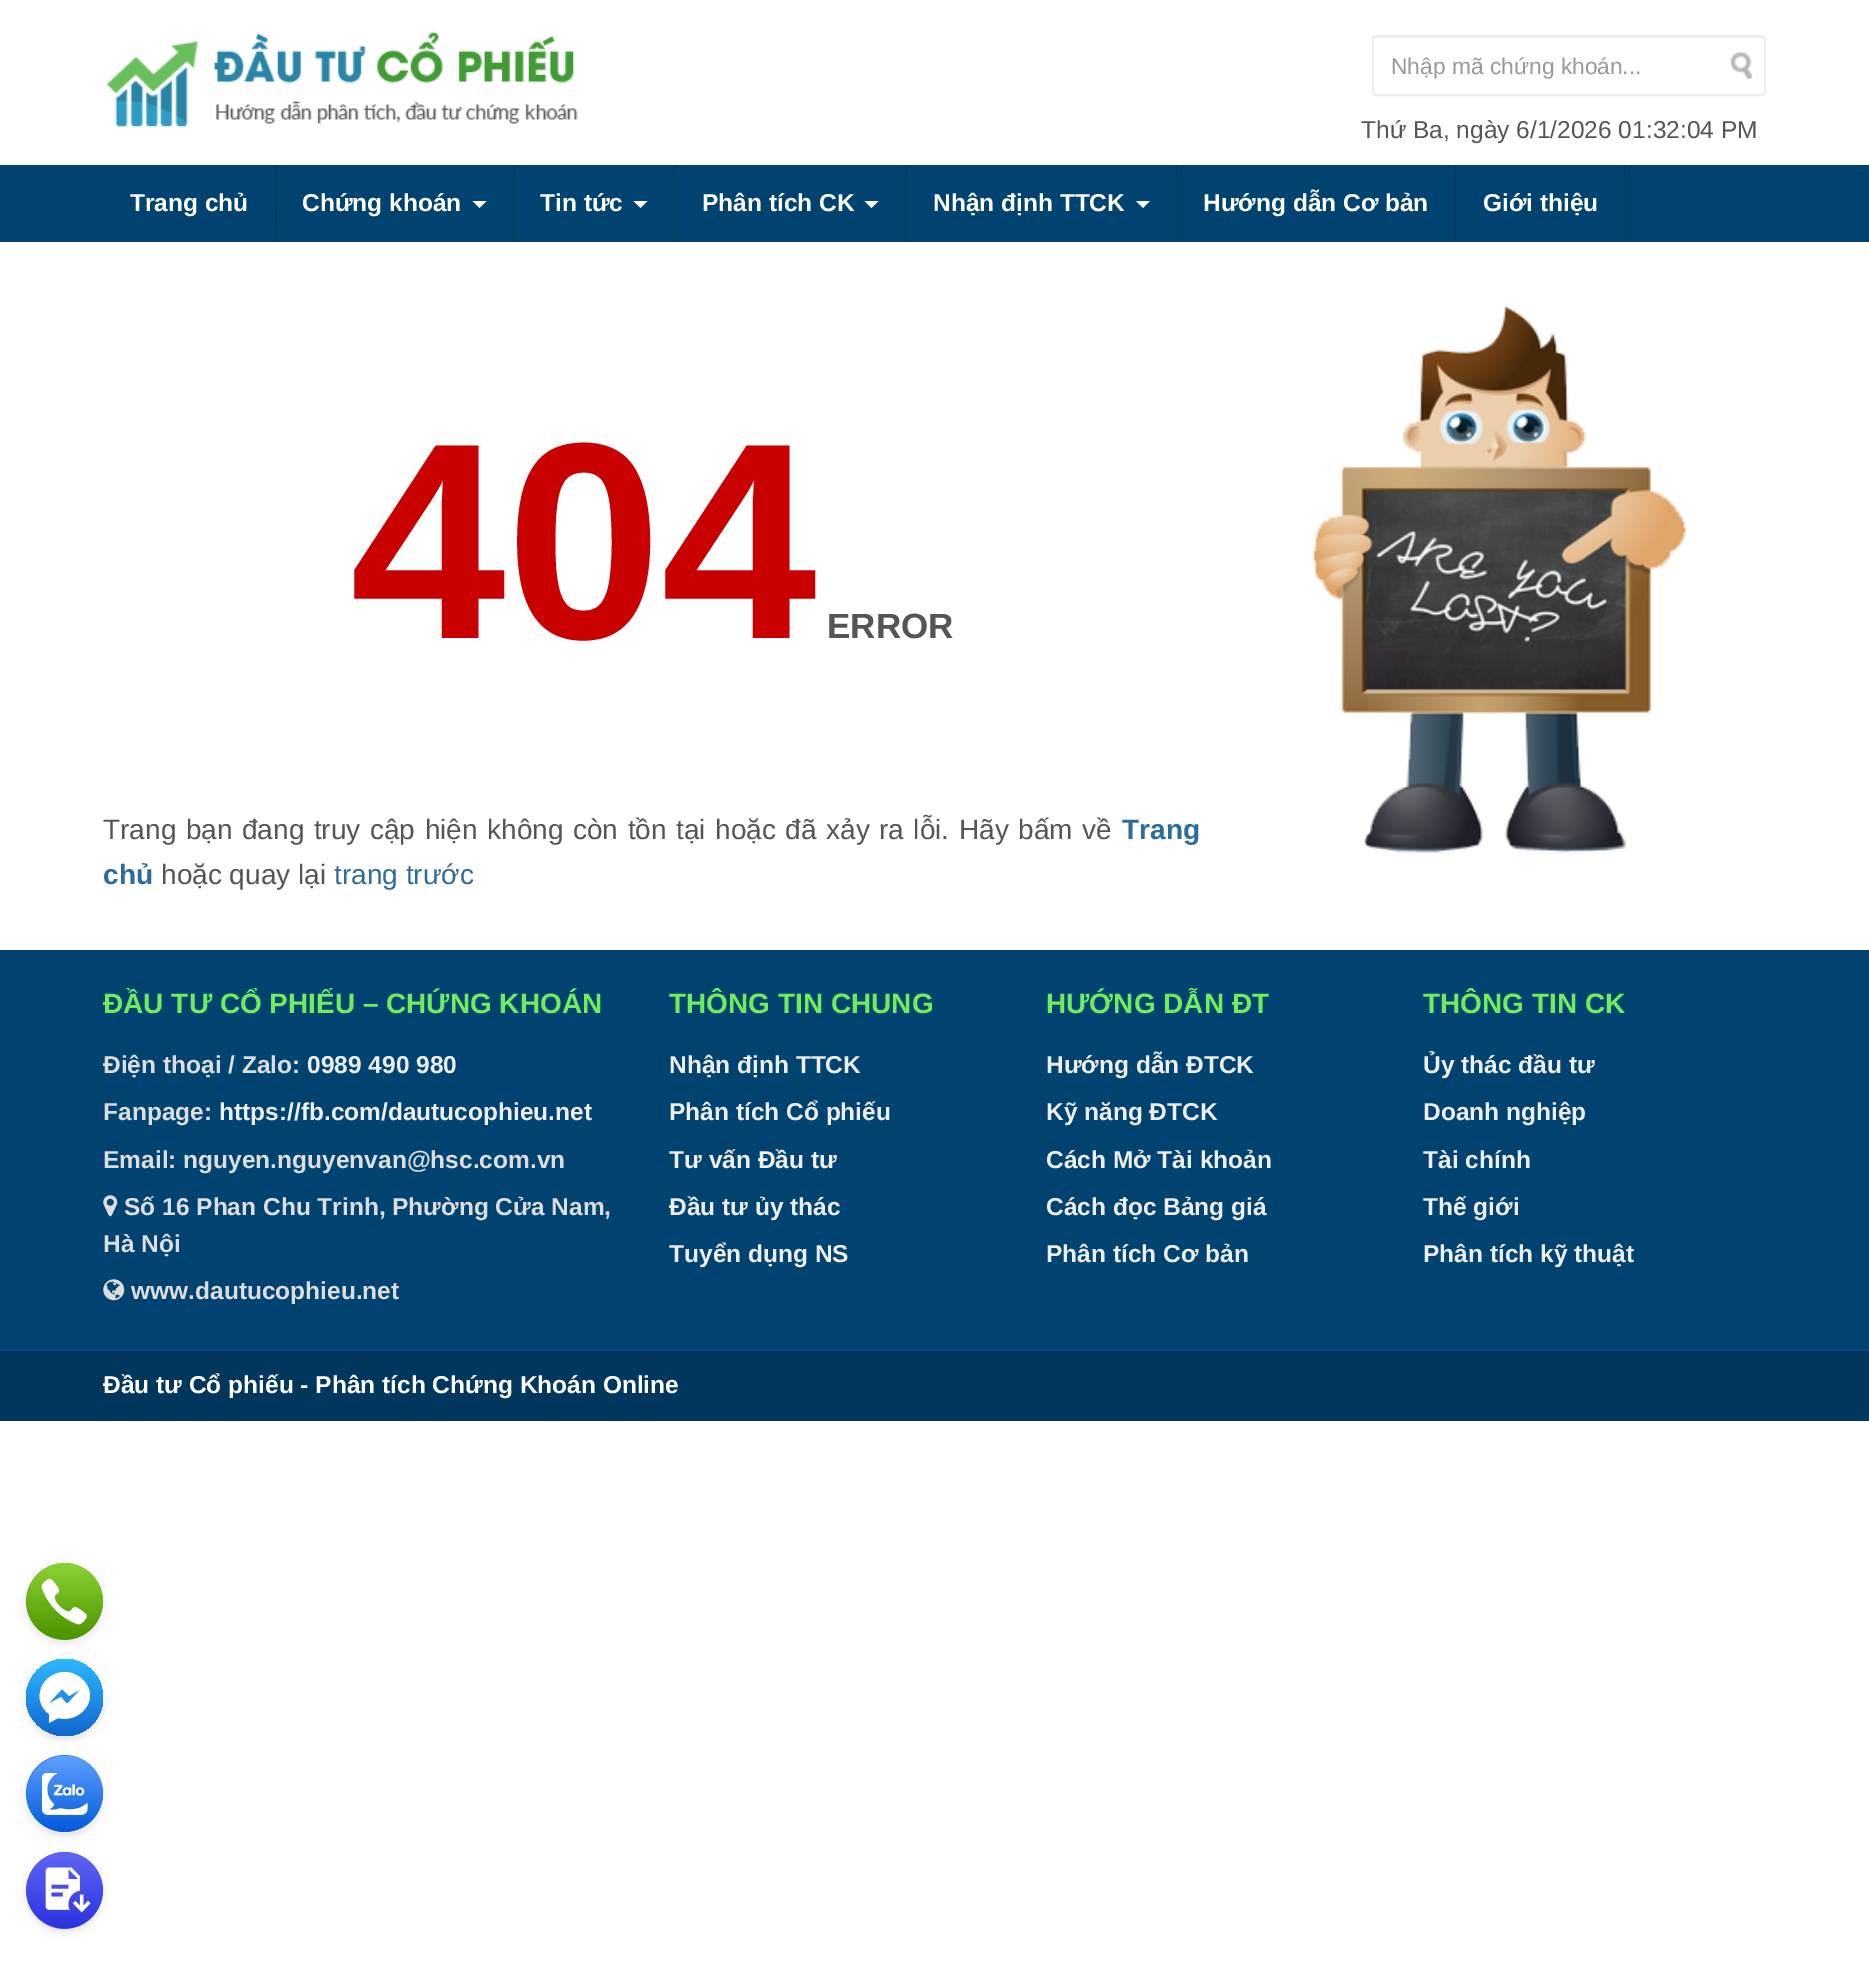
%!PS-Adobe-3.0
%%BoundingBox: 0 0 1869 1974
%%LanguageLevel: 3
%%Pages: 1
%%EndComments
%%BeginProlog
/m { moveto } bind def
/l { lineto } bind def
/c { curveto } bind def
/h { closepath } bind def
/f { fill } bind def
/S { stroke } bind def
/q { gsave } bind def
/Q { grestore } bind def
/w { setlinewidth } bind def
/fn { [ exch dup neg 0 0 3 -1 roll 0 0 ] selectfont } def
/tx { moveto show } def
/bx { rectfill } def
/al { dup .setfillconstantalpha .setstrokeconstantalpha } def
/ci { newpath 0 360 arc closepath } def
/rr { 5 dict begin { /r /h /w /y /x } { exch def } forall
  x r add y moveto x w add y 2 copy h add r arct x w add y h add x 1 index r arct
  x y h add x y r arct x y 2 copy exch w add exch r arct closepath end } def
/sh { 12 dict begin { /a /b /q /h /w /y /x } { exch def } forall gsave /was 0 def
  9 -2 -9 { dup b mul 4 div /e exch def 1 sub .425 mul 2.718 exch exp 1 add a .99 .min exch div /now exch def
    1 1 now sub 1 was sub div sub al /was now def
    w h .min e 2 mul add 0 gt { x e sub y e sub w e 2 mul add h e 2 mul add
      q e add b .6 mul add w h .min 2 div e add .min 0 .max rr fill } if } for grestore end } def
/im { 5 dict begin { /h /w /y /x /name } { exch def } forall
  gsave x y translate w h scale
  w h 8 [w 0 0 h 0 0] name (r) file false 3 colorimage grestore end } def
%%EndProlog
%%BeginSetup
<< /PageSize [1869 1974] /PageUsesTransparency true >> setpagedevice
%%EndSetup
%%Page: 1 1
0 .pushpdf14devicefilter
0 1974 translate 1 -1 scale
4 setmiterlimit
1 setgray
0 0 1869 1974 bx
(image0.raw) 107 31 471 96 im
0.925 setgray
1376 38 m 1762 38 l 1763 38 1764 39 1764 40 c 1764 38 l 1762 37 l 1375 37 l 1374 38 1374 39 1374 40 c 1374 39 1375 38 1376 38 c h f
0.933 setgray
2 w
1373 36 392 59 3 rr S
/LiberationSans-Regular 22.75 fn
0.6 setgray
(Nhập mã chứng khoán...) 1391 74 tx
(image1.raw) 1730 52 23 28 im
/LiberationSans-Regular 24.5 fn
0.333 setgray
(Thứ Ba, ngày 6/1/2026 01:32:04 PM) 1361 138 tx
0 0.263 0.439 setrgbcolor
0 165 1869 77 bx
0 0.231 0.384 setrgbcolor
275 165 2 77 bx
/LiberationSans-Bold 24.5 fn
1 setgray
(Trang chủ) 130 211 tx
0 0.231 0.384 setrgbcolor
513 165 2 77 bx
1 setgray
(Chứng khoán) 302 211 tx
472.5 201 m 486.5 201 l 479.5 208 l h f
0 0.231 0.384 setrgbcolor
674 165 2 77 bx
1 setgray
(Tin tức) 540 211 tx
633.5 201 m 647.5 201 l 640.5 208 l h f
0 0.231 0.384 setrgbcolor
905 165 2 77 bx
1 setgray
(Phân tích CK) 702 211 tx
864.5 201 m 878.5 201 l 871.5 208 l h f
0 0.231 0.384 setrgbcolor
1176 165 2 77 bx
1 setgray
(Nhận định TTCK) 933 211 tx
1136 201 m 1150 201 l 1143 208 l h f
0 0.231 0.384 setrgbcolor
1454 165 2 77 bx
1 setgray
(Hướng dẫn Cơ bản) 1203 211 tx
0 0.231 0.384 setrgbcolor
1624 165 2 77 bx
1 setgray
(Giới thiệu) 1483 211 tx
/LiberationSans-Bold 280 fn
0.788 0 0 setrgbcolor
(404) 350 638 tx
/LiberationSans-Bold 35 fn
0.333 setgray
(ERROR) 827 638 tx
/LiberationSans-Regular 28 fn
103 839 m 1.75 0 32 (Trang bạn đang truy cập hiện không còn tồn tại hoặc đã xảy ra lỗi. Hãy bấm về) widthshow
/LiberationSans-Bold 28 fn
0.176 0.424 0.604 setrgbcolor
(Trang) 1122 839 tx
(chủ) 103 884 tx
/LiberationSans-Regular 28 fn
0.333 setgray
(hoặc quay lại) 161 884 tx
0.176 0.424 0.604 setrgbcolor
(trang trước) 334 884 tx
(image2.raw) 1312 306 375 547 im
0 0.263 0.439 setrgbcolor
0 950 1869 399 bx
/LiberationSans-Bold 28 fn
0.431 0.933 0.365 setrgbcolor
(ĐẦU TƯ CỔ PHIẾU – CHỨNG KHOÁN) 103 1013 tx
/LiberationSans-Bold 24.5 fn
0.867 setgray
(Điện thoại / Zalo:) 103 1073 tx
0.933 setgray
(0989 490 980) 307 1073 tx
0.867 setgray
(Fanpage:) 103 1120 tx
0.933 setgray
(https://fb.com/dautucophieu.net) 219 1120 tx
0.867 setgray
(Email: nguyen.nguyenvan@hsc.com.vn) 103 1168 tx
(image3.raw) 103 1195 15 22 im
(Số 16 Phan Chu Trinh, Phường Cửa Nam,) 124 1215 tx
(Hà Nội) 103 1252 tx
(image4.raw) 103 1279 22 22 im
(www.dautucophieu.net) 131 1299 tx
/LiberationSans-Bold 28 fn
0.431 0.933 0.365 setrgbcolor
(THÔNG TIN CHUNG) 669 1013 tx
/LiberationSans-Bold 24.5 fn
0.933 setgray
(Nhận định TTCK) 669 1073 tx
(Phân tích Cổ phiếu) 669 1120 tx
(Tư vấn Đầu tư) 669 1168 tx
(Đầu tư ủy thác) 669 1215 tx
(Tuyển dụng NS) 669 1262 tx
/LiberationSans-Bold 28 fn
0.431 0.933 0.365 setrgbcolor
(HƯỚNG DẪN ĐT) 1046 1013 tx
/LiberationSans-Bold 24.5 fn
0.933 setgray
(Hướng dẫn ĐTCK) 1046 1073 tx
(Kỹ năng ĐTCK) 1046 1120 tx
(Cách Mở Tài khoản) 1046 1168 tx
(Cách đọc Bảng giá) 1046 1215 tx
(Phân tích Cơ bản) 1046 1262 tx
/LiberationSans-Bold 28 fn
0.431 0.933 0.365 setrgbcolor
(THÔNG TIN CK) 1423 1013 tx
/LiberationSans-Bold 24.5 fn
0.933 setgray
(Ủy thác đầu tư) 1423 1073 tx
(Doanh nghiệp) 1423 1120 tx
(Tài chính) 1423 1168 tx
(Thế giới) 1423 1215 tx
(Phân tích kỹ thuật) 1423 1262 tx
0.004 0.216 0.361 setrgbcolor
0 1351 1869 70 bx
0.008 0.302 0.498 setrgbcolor
0 1349 1869 2 bx
1 setgray
(Đầu tư Cổ phiếu - Phân tích Chứng Khoán Online) 103 1393 tx
0 setgray
26 1566 77 77 38.5 4.5 0.11 sh
0.314 0.588 0 setrgbcolor
64.5 1601.5 38.5 ci f
(image5.raw) 26 1563 77 77 im
0 setgray
26 1663 77 77 38.5 4.5 0.11 sh
0 0.518 1 setrgbcolor
64.5 1697.5 38.5 ci f
q 103 1698 m 103 1676 86 1659 65 1659 c 44 1659 26 1676 26 1698 c 26 1719 44 1736 65 1736 c 86 1736 103 1719 103 1698 c h clip newpath
<< /ShadingType 2 /ColorSpace /DeviceRGB /Coords [64 1735 64 1660] /Extend [true true] /Function << /FunctionType 2 /Domain [0 1] /C0 [0.067 0.408 0.812] /C1 [0.173 0.718 1] /N 1 >> >> shfill Q
1 setgray
65 1672 m 42 1672 30 1700 49 1714 c 49 1723 l 58 1718 l 81 1724 102 1697 82 1679 c 78 1675 71 1672 65 1672 c h 67 1704 m 61 1697 l 48 1704 l 62 1689 l 69 1696 l 81 1689 l h eofill
0 setgray
26 1759 77 77 38.5 4.5 0.11 sh
0 0.408 1 setrgbcolor
64.5 1793.5 38.5 ci f
(image6.raw) 26 1755 77 77 im
0 setgray
26 1855 77 77 38.5 4.5 0.11 sh
0.278 0.31 1 setrgbcolor
64.5 1890.5 38.5 ci f
(image7.raw) 26 1852 77 77 im
.poppdf14devicefilter showpage
%%EOF
